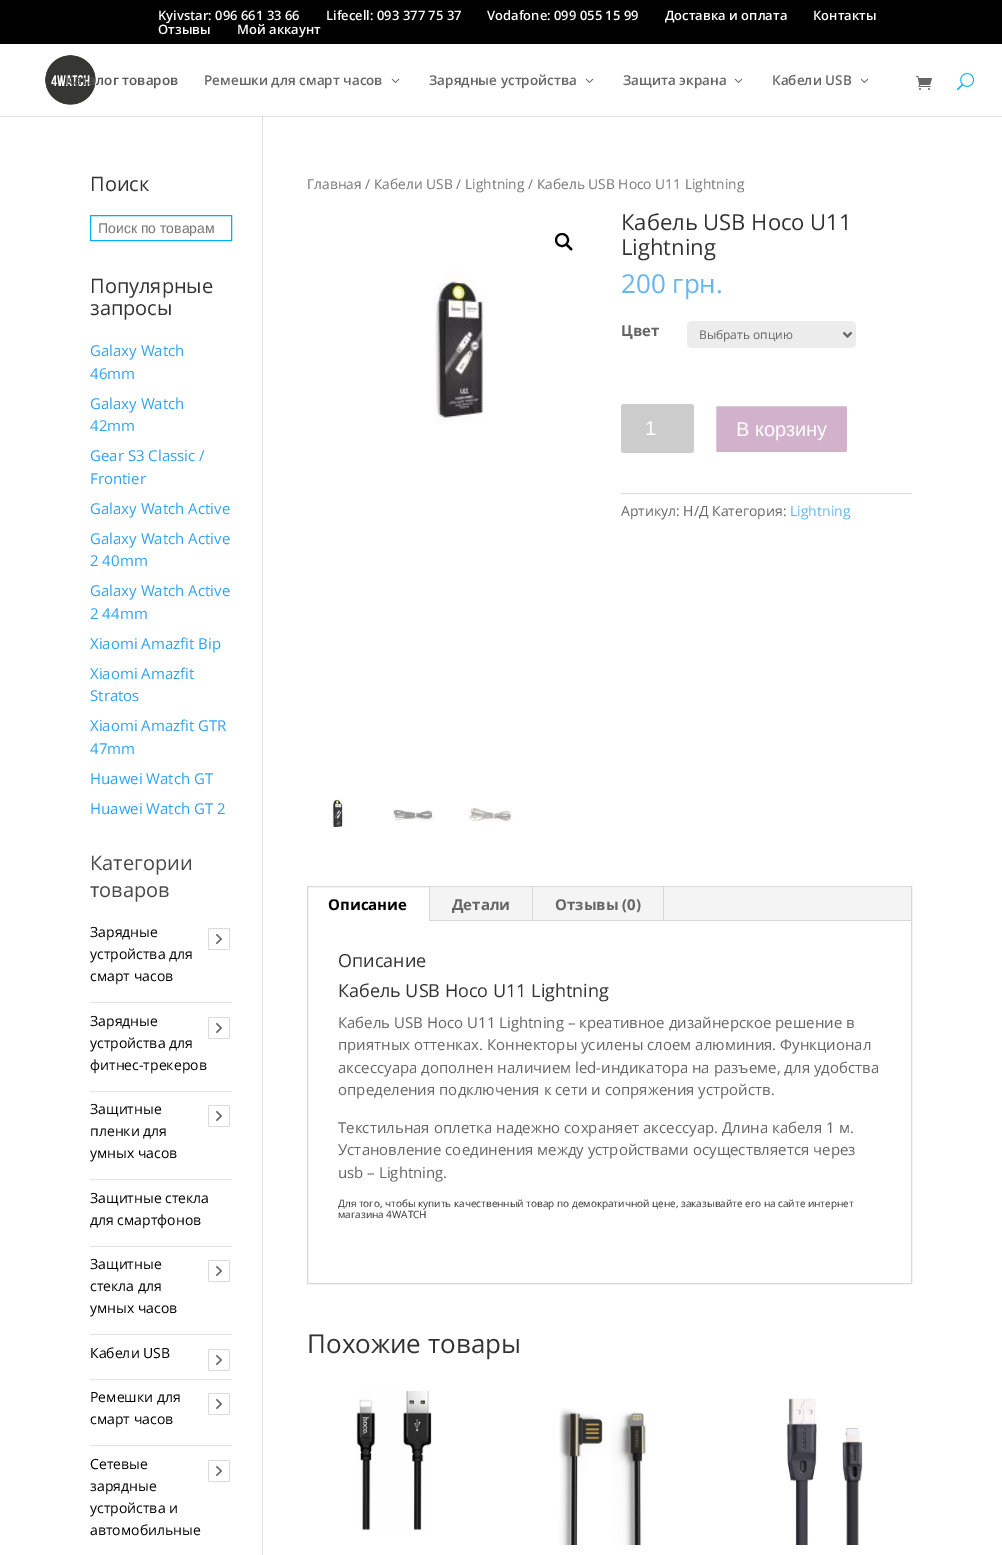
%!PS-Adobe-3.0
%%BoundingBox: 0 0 1002 1555
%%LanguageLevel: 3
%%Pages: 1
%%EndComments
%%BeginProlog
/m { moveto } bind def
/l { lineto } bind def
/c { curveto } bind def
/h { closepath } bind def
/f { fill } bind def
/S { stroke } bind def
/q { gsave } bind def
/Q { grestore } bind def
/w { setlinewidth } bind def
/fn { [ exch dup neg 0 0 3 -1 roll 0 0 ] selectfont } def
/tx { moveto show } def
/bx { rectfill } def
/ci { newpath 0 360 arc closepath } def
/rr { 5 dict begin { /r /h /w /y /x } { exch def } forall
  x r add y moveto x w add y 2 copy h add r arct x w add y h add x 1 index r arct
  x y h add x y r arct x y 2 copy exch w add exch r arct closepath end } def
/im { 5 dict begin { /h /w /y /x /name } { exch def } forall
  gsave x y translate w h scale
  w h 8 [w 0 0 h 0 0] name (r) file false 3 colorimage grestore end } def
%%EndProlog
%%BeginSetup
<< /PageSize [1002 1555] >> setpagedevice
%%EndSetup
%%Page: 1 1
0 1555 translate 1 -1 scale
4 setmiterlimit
1 setgray
0 0 1002 1555 bx
0.902 setgray
0 116 1002 1 bx
0.886 setgray
262 115 1 1440 bx
1 setgray
262 115 1 1 bx
0 setgray
0 0 1002 44 bx
/OpenSans-SemiBold 13 fn
1 setgray
(Kyivstar: 096 661 33 66) 158 20 tx
(Lifecell: 093 377 75 37) 326 20 tx
(Vodafone: 099 055 15 99) 487 20 tx
(Доставка и оплата) 665 20 tx
(Контакты) 813 20 tx
(Отзывы) 158 34 tx
(Мой аккаунт) 237 34 tx
(image0.raw) 45 55 51 50 im
/OpenSans-SemiBold 13.5 fn
0.341 setgray
(Каталог товаров) 65 85 tx
0.4 setgray
(Ремешки для смарт часов) 204 85 tx
(image1.raw) 391 78 9 5 im
(Зарядные устройства) 429 85 tx
(image1.raw) 585 78 9 5 im
(Защита экрана) 623 85 tx
(image1.raw) 734 78 9 5 im
(Кабели USB) 772 85 tx
(image1.raw) 860 78 9 5 im
(image2.raw) 916 76 16 14 im
(image3.raw) 957 73 17 18 im
0.796 setgray
262 116 1 1 bx
/OpenSans-Regular 20 fn
0.2 setgray
(Поиск) 90 191 tx
0 0.686 0.949 setrgbcolor
90.5 215.5 141 25 rectstroke
/LiberationSans-Regular 14 fn
0.467 setgray
(Поиск по товарам) 98 233 tx
/OpenSans-Regular 20 fn
0.2 setgray
(Популярные) 90 293 tx
(запросы) 90 315 tx
/OpenSans-Regular 15 fn
0.18 0.639 0.949 setrgbcolor
(Galaxy Watch) 90 356 tx
(46mm) 90 379 tx
(Galaxy Watch) 90 409 tx
(42mm) 90 431 tx
(Gear S3 Classiс /) 90 461 tx
(Frontier) 90 484 tx
(Galaxy Watch Active) 90 514 tx
(Galaxy Watch Active) 90 544 tx
(2 40mm) 90 566 tx
(Galaxy Watch Active) 90 596 tx
(2 44mm) 90 619 tx
(Xiaomi Amazfit Bip) 90 649 tx
(Xiaomi Amazfit) 90 679 tx
(Stratos) 90 701 tx
(Xiaomi Amazfit GTR) 90 731 tx
(47mm) 90 754 tx
(Huawei Watch GT) 90 784 tx
(Huawei Watch GT 2) 90 814 tx
/OpenSans-Regular 20 fn
0.282 setgray
(Категории) 90 870 tx
(товаров) 90 897 tx
0.886 setgray
90 1002 142 1 bx
/OpenSans-Regular 14 fn
0 setgray
(Зарядные) 90 937 tx
(image4.raw) 208 928 22 22 im
(устройства для) 90 959 tx
(смарт часов) 90 981 tx
0.886 setgray
90 1091 142 1 bx
0 setgray
(Зарядные) 90 1026 tx
(image4.raw) 208 1017 22 22 im
(устройства для) 90 1048 tx
(фитнес-трекеров) 90 1070 tx
0.886 setgray
90 1179 142 1 bx
0 setgray
(Защитные) 90 1114 tx
(image4.raw) 208 1105 22 22 im
(пленки для) 90 1136 tx
(умных часов) 90 1158 tx
0.886 setgray
90 1246 142 1 bx
0 setgray
(Защитные стекла) 90 1203 tx
(для смартфонов) 90 1225 tx
0.886 setgray
90 1334 142 1 bx
0 setgray
(Защитные) 90 1269 tx
(image4.raw) 208 1260 22 22 im
(стекла для) 90 1291 tx
(умных часов) 90 1313 tx
0.886 setgray
90 1379 142 1 bx
0 setgray
(Кабели USB) 90 1358 tx
(image4.raw) 208 1349 22 22 im
0.886 setgray
90 1445 142 1 bx
0 setgray
(Ремешки для) 90 1402 tx
(image4.raw) 208 1393 22 22 im
(смарт часов) 90 1424 tx
(Сетевые) 90 1469 tx
(image4.raw) 208 1460 22 22 im
(зарядные) 90 1491 tx
(устройства и) 90 1513 tx
(автомобильные) 90 1535 tx
/OpenSans-Regular 13.8 fn
0.467 setgray
(Главная / Кабели USB / Lightning / Кабель USB Hoco U11 Lightning) 307 189 tx
0 setgray
2 w
562 240 6 ci S
566.5 244.5 m 567.5 243.5 569.5 246 570 246.5 c 570.5 247 573.5 249 572 250 c 571 251.5 569 248.5 568.5 248 c 568 247.5 565 245.5 566.5 244.5 c h f
(image5.raw) 434 270 53 154 im
(image6.raw) 331 795 13 33 im
(image7.raw) 392 809 43 14 im
(image8.raw) 467 807 46 16 im
/OpenSans-Regular 22 fn
0.2 setgray
(Кабель USB Hoco U11) 621 230 tx
(Lightning) 621 255 tx
/OpenSans-Regular 26 fn
0.388 0.714 0.949 setrgbcolor
(200 грн.) 621 293 tx
/OpenSans-Bold 15 fn
0.4 setgray
(Цвет) 621 336 tx
0.925 setgray
687 321 169 27 5 rr f
0.4 setgray
843.5 332.5 m 847.5 336.5 l 851.5 332.5 l S
/OpenSans-Regular 12 fn
(Выбрать опцию) 699 339 tx
0.8 setgray
621 404 73 49 3 rr f
/LiberationSans-Regular 20 fn
1 setgray
(1) 645 435 tx
0.824 0.698 0.796 setrgbcolor
715 405 133 48 2 rr q f Q
1 setgray
S
(В корзину) 736 436 tx
0.855 setgray
621 493 291 1 bx
/OpenSans-Regular 14 fn
0.4 setgray
(Артикул: Н/Д Категория:) 621 516 tx
0.388 0.714 0.949 setrgbcolor
(Lightning) 790 516 tx
0.851 setgray
1 w
307.5 886.5 604 397 rectstroke
0.957 setgray
430 887 481 33 bx
0.851 setgray
429 887 1 34 bx
/OpenSans-Bold 15 fn
0 setgray
(Описание) 328 910 tx
0.851 setgray
532 887 1 34 bx
0.4 setgray
(Детали) 452 910 tx
0.851 setgray
663 887 1 34 bx
0.4 setgray
(Отзывы \(0\)) 555 910 tx
0.851 setgray
430 920 481 1 bx
/OpenSans-Regular 18 fn
0.2 setgray
(Описание) 338 967 tx
(Кабель USB Hoco U11 Lightning) 338 997 tx
/OpenSans-Regular 15 fn
0.4 setgray
(Кабель USB Hoco U11 Lightning – креативное дизайнерское решение в) 338 1028 tx
(приятных оттенках. Коннекторы усилены слоем алюминия. Функционал) 338 1050 tx
(аксессуара дополнен наличием led-индикатора на разъеме, для удобства) 338 1073 tx
(определения подключения к сети и сопряжения устройств.) 338 1095 tx
(Текстильная оплетка надежно сохраняет аксессуар. Длина кабеля 1 м.) 338 1133 tx
(Установление соединения между устройствами осуществляется через) 338 1155 tx
(usb – Lightning.) 338 1178 tx
/OpenSans-Regular 10 fn
0.2 setgray
(Для того, чтобы купить качественный товар по демократичной цене, заказывайте его на сайте интернет) 338 1207 tx
(магазина 4WATCH) 338 1218 tx
/OpenSans-Regular 26 fn
(Похожие товары) 307 1353 tx
(image9.raw) 356 1390 76 141 im
(image10.raw) 559 1408 88 137 im
(image11.raw) 786 1398 78 147 im
showpage
%%EOF
